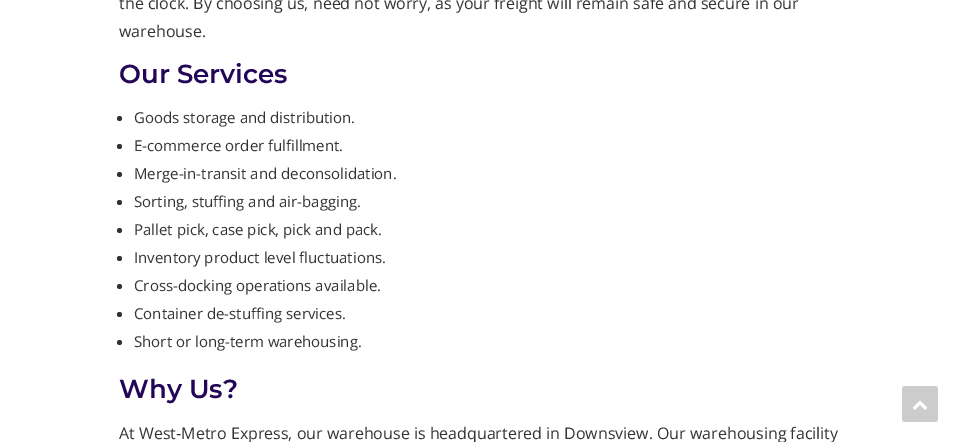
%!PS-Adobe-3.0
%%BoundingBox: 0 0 958 442
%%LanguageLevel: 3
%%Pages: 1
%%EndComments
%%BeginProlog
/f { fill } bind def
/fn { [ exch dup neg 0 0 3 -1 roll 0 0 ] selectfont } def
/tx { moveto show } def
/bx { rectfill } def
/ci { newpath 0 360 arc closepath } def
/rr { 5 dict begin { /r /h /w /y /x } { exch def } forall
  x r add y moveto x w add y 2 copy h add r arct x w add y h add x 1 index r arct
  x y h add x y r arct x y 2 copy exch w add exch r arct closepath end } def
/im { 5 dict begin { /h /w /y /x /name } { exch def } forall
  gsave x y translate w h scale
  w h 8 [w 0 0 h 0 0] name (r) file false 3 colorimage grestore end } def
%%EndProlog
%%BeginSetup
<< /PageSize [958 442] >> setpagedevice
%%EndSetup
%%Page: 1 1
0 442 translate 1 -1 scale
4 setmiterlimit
1 setgray
0 0 958 442 bx
/OpenSans-Regular 16 fn
0.2 setgray
(the clock. By choosing us, need not worry, as your freight will remain safe and secure in our) 119 9 tx
(warehouse.) 119 37 tx
/Montserrat-SemiBold 26 fn
0.137 0.024 0.341 setrgbcolor
(Our Services) 119 83 tx
0.2 setgray
119.5 118.5 2.5 ci f
/OpenSans-Regular 15 fn
(Goods storage and distribution.) 134 123 tx
119.5 146.5 2.5 ci f
(E-commerce order fulfillment.) 134 151 tx
119.5 174.5 2.5 ci f
(Merge-in-transit and deconsolidation.) 134 179 tx
119.5 202.5 2.5 ci f
(Sorting, stuffing and air-bagging.) 134 207 tx
119.5 230.5 2.5 ci f
(Pallet pick, case pick, pick and pack.) 134 235 tx
119.5 258.5 2.5 ci f
(Inventory product level fluctuations.) 134 263 tx
119.5 286.5 2.5 ci f
(Cross-docking operations available.) 134 291 tx
119.5 314.5 2.5 ci f
(Container de-stuffing services.) 134 319 tx
119.5 342.5 2.5 ci f
(Short or long-term warehousing.) 134 347 tx
/Montserrat-SemiBold 26 fn
0.137 0.024 0.341 setrgbcolor
(Why Us?) 119 398 tx
/OpenSans-Regular 16 fn
0.2 setgray
(At West-Metro Express, our warehouse is headquartered in Downsview. Our warehousing facility) 119 439 tx
0.8 setgray
902 386 36 36 3 rr f
(image0.raw) 912 400 15 10 im
showpage
%%EOF
